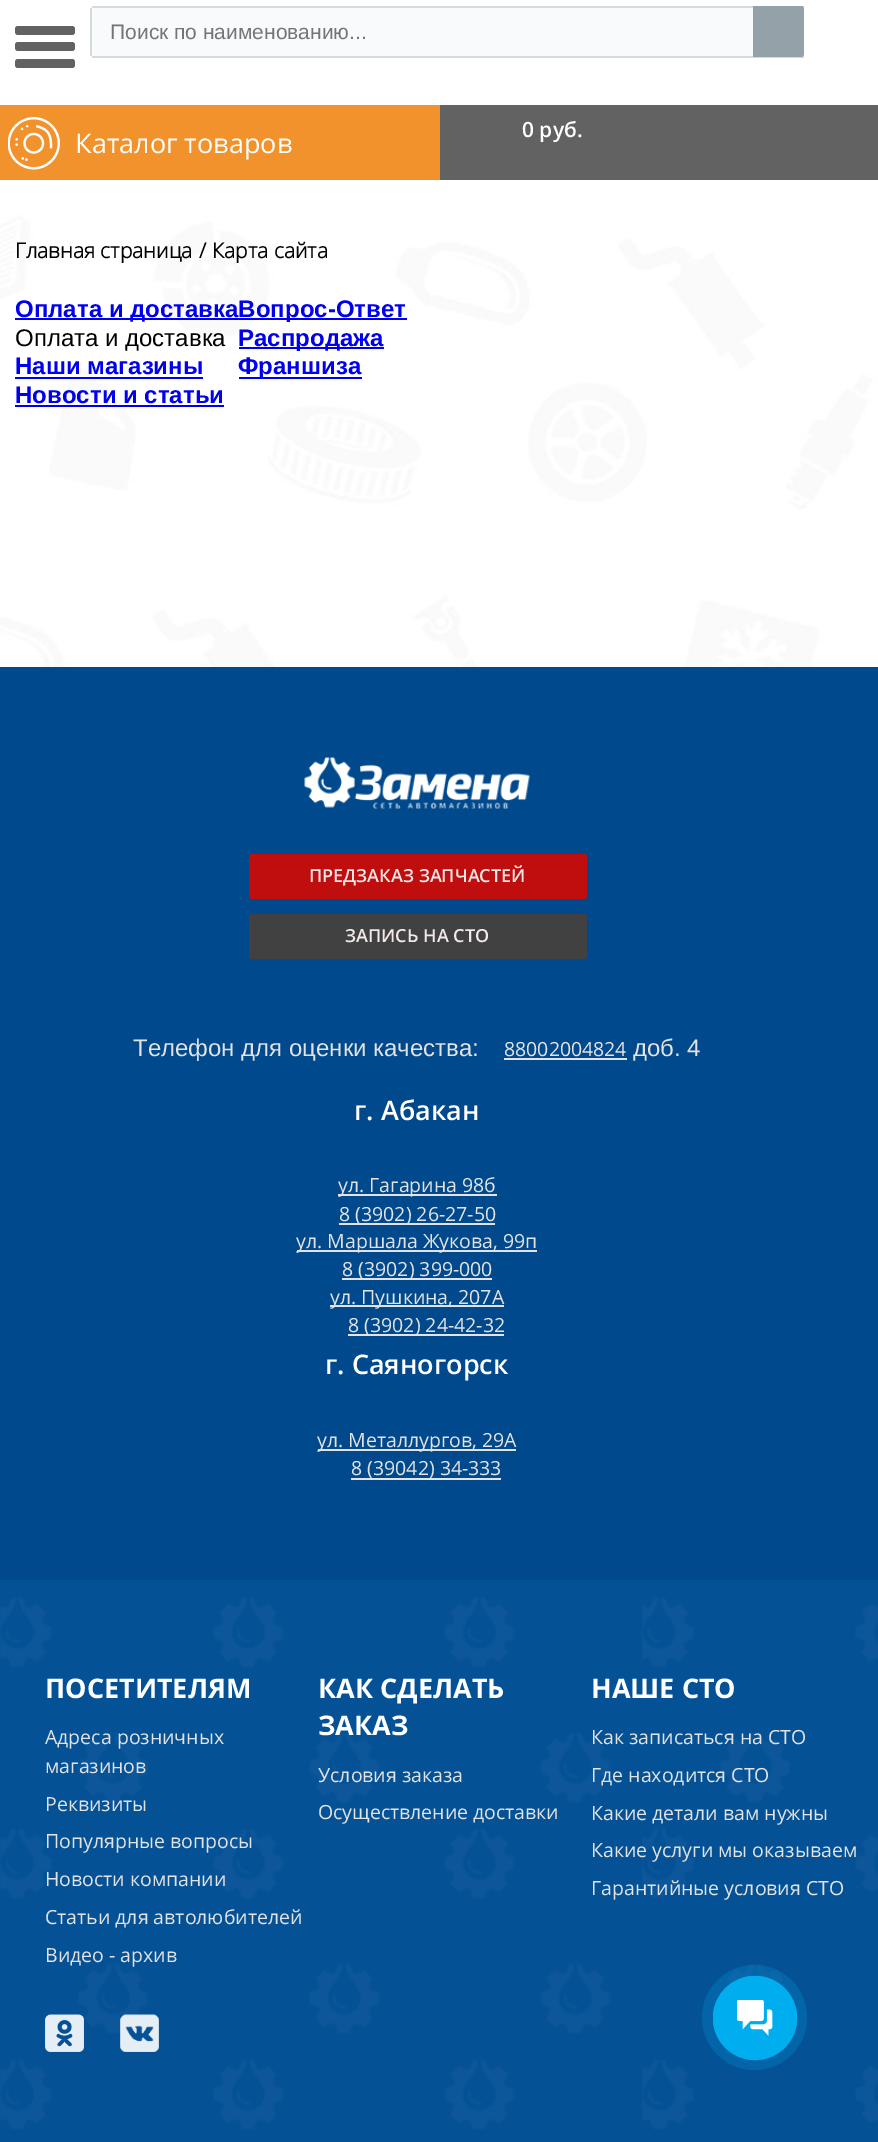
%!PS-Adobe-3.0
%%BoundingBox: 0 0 878 2142
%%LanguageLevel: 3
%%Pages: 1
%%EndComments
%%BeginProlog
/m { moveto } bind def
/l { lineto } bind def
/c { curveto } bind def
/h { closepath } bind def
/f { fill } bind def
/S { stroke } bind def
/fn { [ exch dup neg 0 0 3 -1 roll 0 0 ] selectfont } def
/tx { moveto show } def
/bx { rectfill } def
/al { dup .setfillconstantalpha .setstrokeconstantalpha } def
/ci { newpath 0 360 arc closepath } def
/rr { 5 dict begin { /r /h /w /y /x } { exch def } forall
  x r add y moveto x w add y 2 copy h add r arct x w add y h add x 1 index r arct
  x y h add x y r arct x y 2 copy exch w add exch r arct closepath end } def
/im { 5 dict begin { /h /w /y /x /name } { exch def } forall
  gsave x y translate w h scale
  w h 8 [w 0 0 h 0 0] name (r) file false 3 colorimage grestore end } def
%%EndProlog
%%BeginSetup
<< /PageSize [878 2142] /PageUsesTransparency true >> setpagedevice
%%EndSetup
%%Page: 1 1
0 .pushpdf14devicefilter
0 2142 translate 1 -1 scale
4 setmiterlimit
1 setgray
0 0 878 2142 bx
(image0.raw) 0 180 878 487 im
0.973 0.98 0.988 setrgbcolor
93 6 m 804 6 l 804 57 l 93 57 l 91.5 57 90 55.5 90 54 c 90 9 l 90 7.5 91.5 6 93 6 c h f
0.835 0.855 0.863 setrgbcolor
92 6 712 2 bx
92 56 712 2 bx
90 8 2 48 bx
/LiberationSans-Regular 21 fn
0.459 setgray
(Поиск по наименованию...) 110 39 tx
0.584 0.631 0.659 setrgbcolor
753 6 m 801 6 l 802.5 6 804 7.5 804 9 c 804 54 l 804 55.5 802.5 57 801 57 c 753 57 l h f
0.949 0.573 0.173 setrgbcolor
0 105 440 75 bx
(image1.raw) 8 117 52 53 im
/OpenSans-Regular 27 fn
1 setgray
(Каталог товаров) 75 153 tx
0.384 setgray
15 26 60 9 3 rr f
15 42 60 9 3 rr f
15 59 60 9 3 rr f
440 105 438 75 bx
/OpenSans-SemiBold 21 fn
1 setgray
(0 руб.) 522 137 tx
/OpenSans-Bold 21 fn
0 setgray
(Главная страница) 15 258 tx
(/) 199 258 tx
(Карта сайта) 212 258 tx
0 0 0.933 setrgbcolor
15 318 392 2 bx
/LiberationSans-Bold 24 fn
(Оплата и доставкаВопрос-Ответ) 15 317 tx
/LiberationSans-Regular 24 fn
0 setgray
(Оплата и доставка) 15 346 tx
/LiberationSans-Bold 24 fn
0 0 0.933 setrgbcolor
(Наши магазины) 15 374 tx
15 377 188 2 bx
(Новости и статьи) 15 403 tx
15 405 209 2 bx
239 347 145 2 bx
(Распродажа) 238 346 tx
239 377 123 2 bx
(Франшиза) 238 374 tx
(image2.raw) 0 1580 878 562 im
0 0.286 0.549 setrgbcolor
0 667 878 913 bx
(image3.raw) 304 757 226 52 im
0.753 0.051 0.051 setrgbcolor
249 854 338 45 3 rr f
/OpenSans-SemiBold 18 fn
0.949 0.91 0.91 setrgbcolor
(ПРЕДЗАКАЗ ЗАПЧАСТЕЙ) 309 882 tx
0.255 setgray
249 914 338 45 3 rr f
0.949 0.91 0.91 setrgbcolor
(ЗАПИСЬ НА СТО) 345 942 tx
/LiberationSans-Regular 24 fn
0.89 setgray
(Телефон для оценки качества:) 133 1056 tx
/OpenSans-Regular 19.5 fn
(88002004824) 504 1056 tx
504 1058 123 2 bx
/LiberationSans-Regular 24 fn
(доб. 4) 633 1056 tx
/OpenSans-SemiBold 27 fn
1 setgray
(г. Абакан) 354 1120 tx
0.89 setgray
338 1194 159 2 bx
/OpenSans-Regular 19.5 fn
(ул. Гагарина 98б) 338 1192 tx
339 1223 156 2 bx
(8 \(3902\) 26-27-50) 339 1221 tx
297 1250 240 2 bx
(ул. Маршала Жукова, 99п) 296 1248 tx
342 1278 150 2 bx
(8 \(3902\) 399-000) 342 1276 tx
330 1305 174 2 bx
(ул. Пушкина, 207А) 330 1304 tx
348 1334 156 2 bx
(8 \(3902\) 24-42-32) 348 1332 tx
/OpenSans-SemiBold 27 fn
1 setgray
(г. Саяногорск) 325 1374 tx
0.89 setgray
318 1449 198 2 bx
/OpenSans-Regular 19.5 fn
(ул. Металлургов, 29А) 317 1447 tx
351 1478 150 2 bx
(8 \(39042\) 34-333) 351 1475 tx
/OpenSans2-Bold 27 fn
1 setgray
(ПОСЕТИТЕЛЯМ) 45 1698 tx
/OpenSans-Regular 19.5 fn
0.89 setgray
(Адреса розничных) 45 1744 tx
(магазинов) 45 1773 tx
(Реквизиты) 45 1811 tx
(Популярные вопросы) 45 1848 tx
(Новости компании) 45 1886 tx
(Статьи для автолюбителей) 45 1924 tx
(Видео - архив) 45 1962 tx
/OpenSans2-Bold 27 fn
1 setgray
(КАК СДЕЛАТЬ) 318 1698 tx
(ЗАКАЗ) 318 1735 tx
/OpenSans-Regular 19.5 fn
0.89 setgray
(Условия заказа) 318 1782 tx
(Осуществление доставки) 318 1819 tx
/OpenSans2-Bold 27 fn
1 setgray
(НАШЕ СТО) 591 1698 tx
/OpenSans-Regular 19.5 fn
0.89 setgray
(Как записаться на СТО) 591 1744 tx
(Где находится СТО) 591 1782 tx
(Какие детали вам нужны) 591 1820 tx
(Какие услуги мы оказываем) 591 1857 tx
(Гарантийные условия СТО) 591 1895 tx
(image4.raw) 45 2014 39 38 im
0.016 0.318 0.588 setrgbcolor
120 2015 22 14 bx
(image5.raw) 120 2014 39 38 im
0.2 al
0 0.682 0.937 setrgbcolor
754.5 2017.5 52.5 ci f
1 al
755 2018 41.5 ci S
755 2018 42 ci f
(image6.raw) 737 2000 36 36 im
.poppdf14devicefilter showpage
%%EOF
